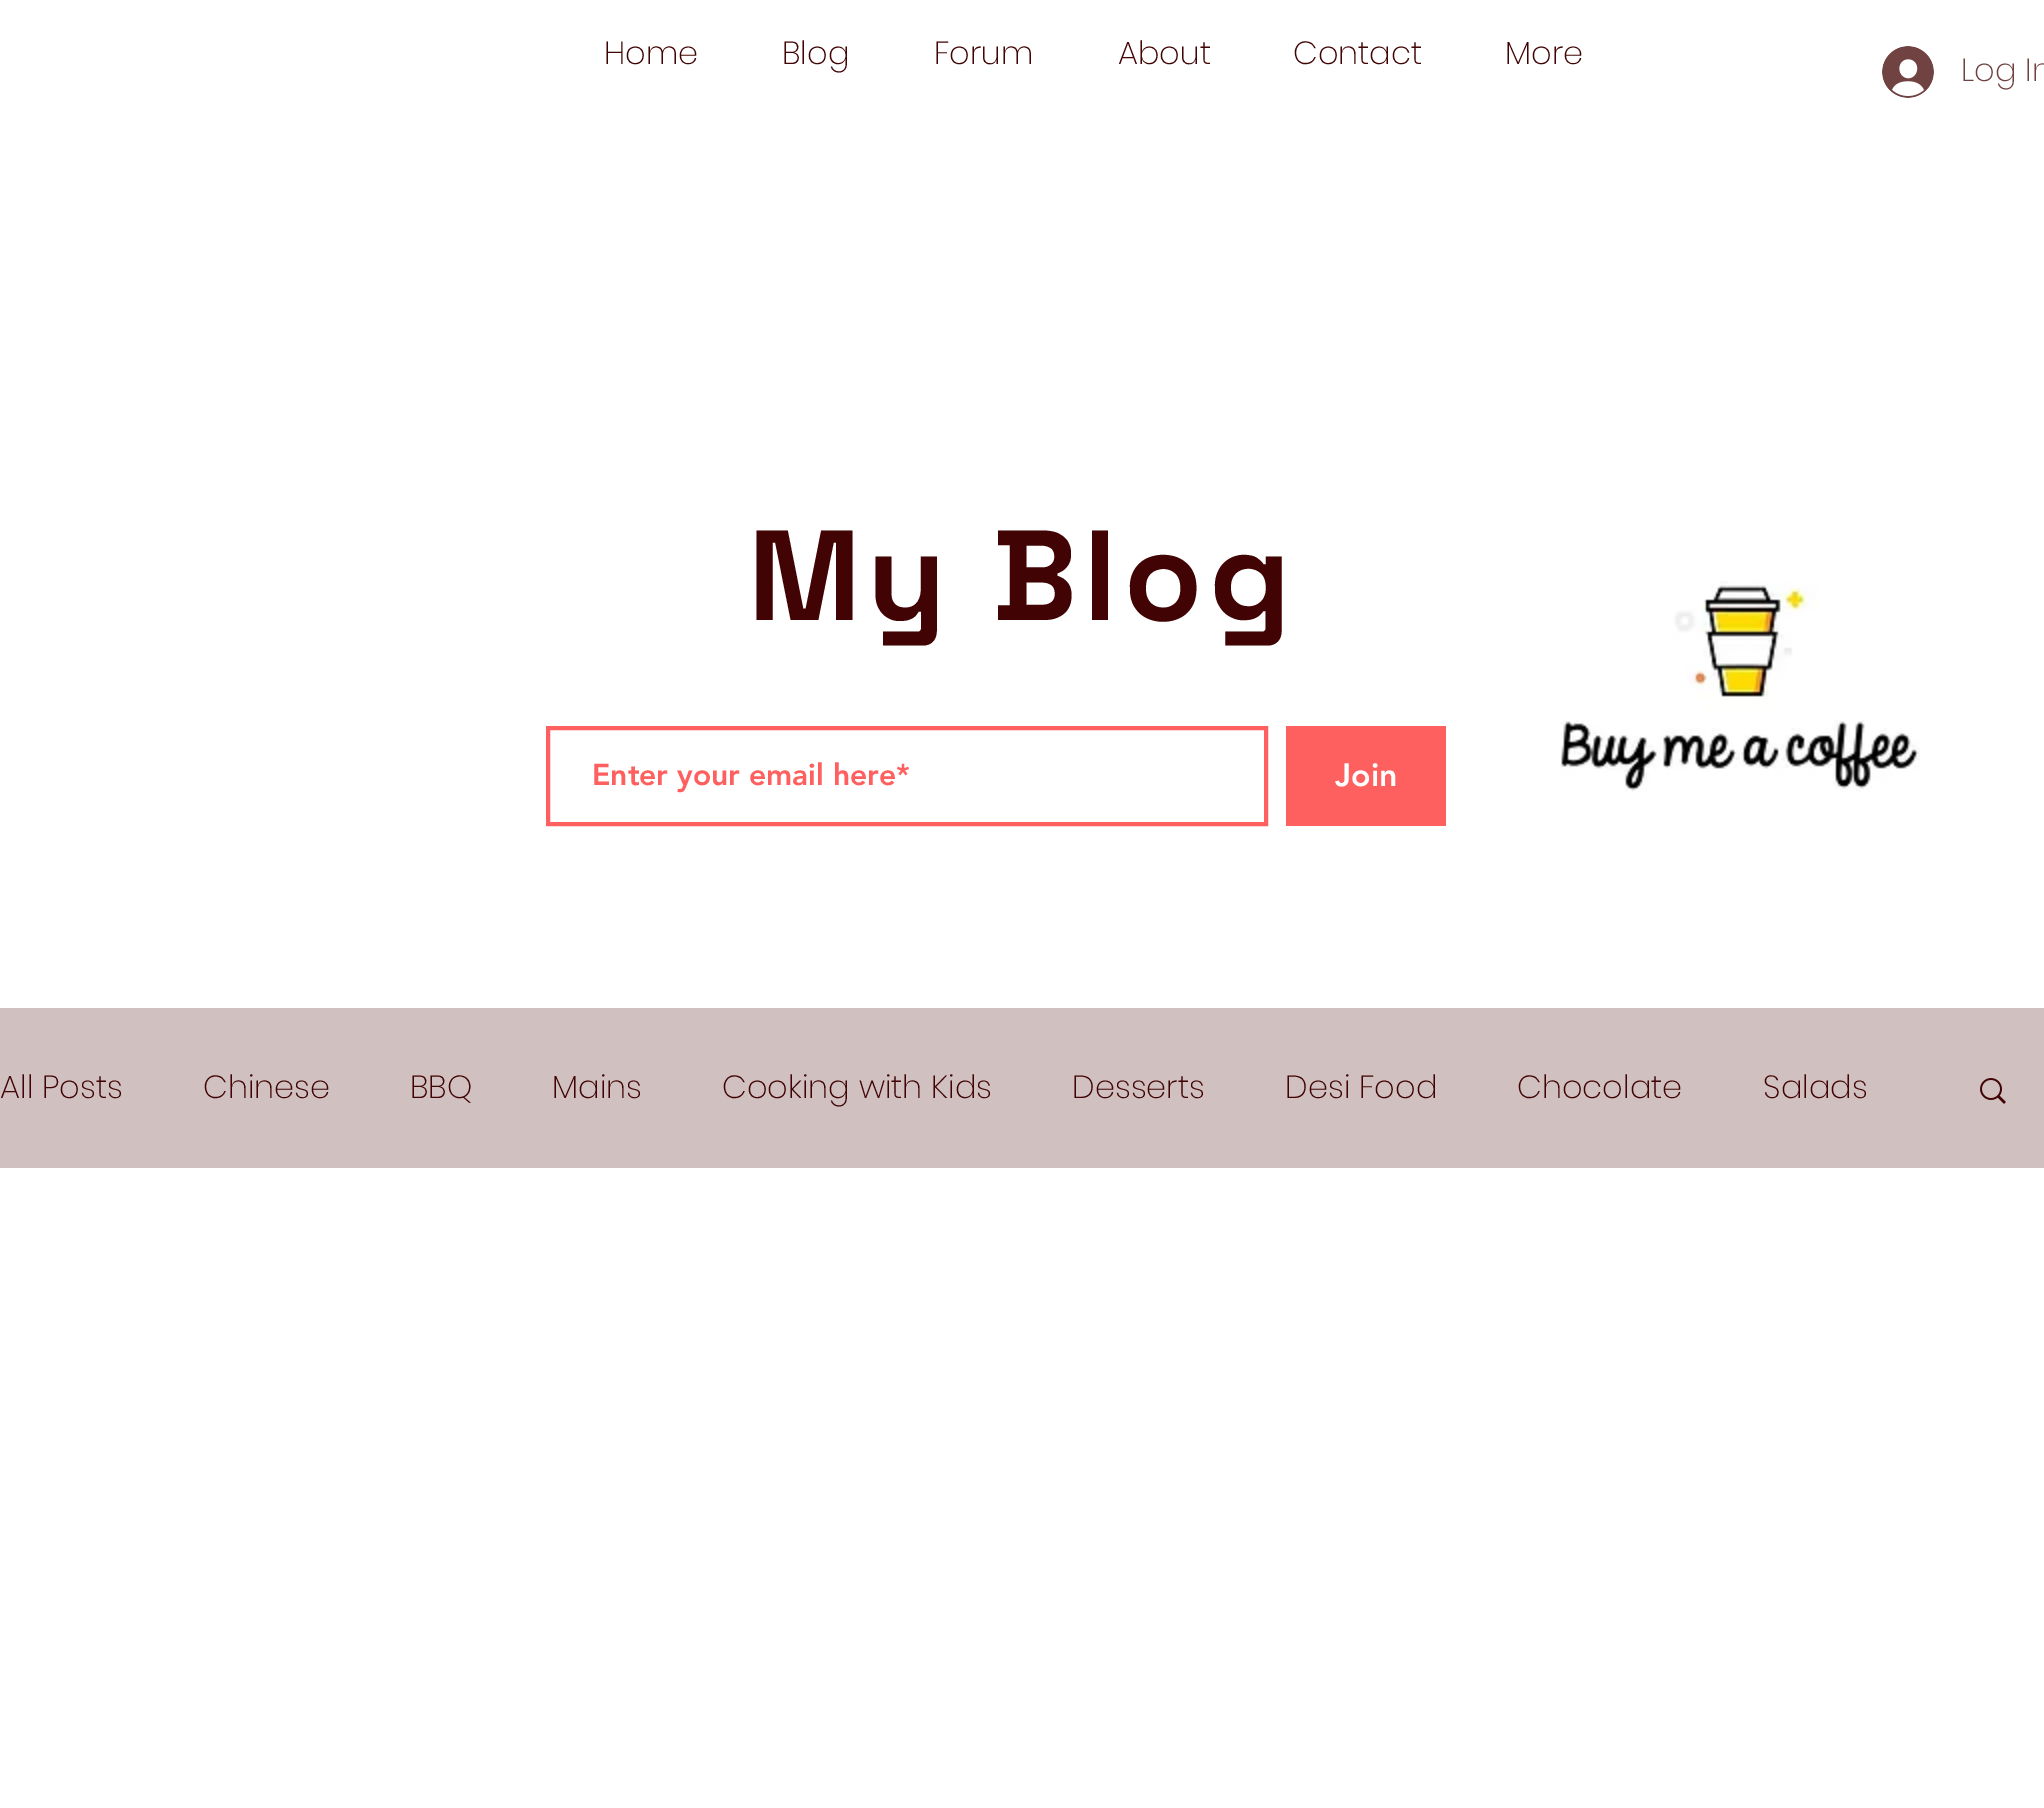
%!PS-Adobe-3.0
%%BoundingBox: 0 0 2044 1808
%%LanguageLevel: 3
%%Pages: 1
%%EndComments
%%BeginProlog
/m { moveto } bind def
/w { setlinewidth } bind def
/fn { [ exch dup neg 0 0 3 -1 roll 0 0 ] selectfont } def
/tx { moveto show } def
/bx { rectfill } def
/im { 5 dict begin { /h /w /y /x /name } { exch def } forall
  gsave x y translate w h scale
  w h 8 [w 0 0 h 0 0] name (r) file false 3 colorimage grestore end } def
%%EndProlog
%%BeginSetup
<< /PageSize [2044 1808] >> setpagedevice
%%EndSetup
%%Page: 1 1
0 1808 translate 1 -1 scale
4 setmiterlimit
1 setgray
0 0 2044 1808 bx
/Poppins-ExtraLight 32 fn
0.255 0.012 0.012 setrgbcolor
(Home) 604 64 tx
(Blog) 782 64 tx
(Forum) 934 64 tx
(About) 1118 64 tx
(Contact) 1293 64 tx
(More) 1505 64 tx
(image0.raw) 1882 46 52 52 im
0.443 0.259 0.259 setrgbcolor
(Log In) 1961 81 tx
/SpaceGrotesk-Bold 128 fn
0.255 0.012 0.012 setrgbcolor
748 620 m 6.5 0 (My Blog) ashow
(image1.raw) 1560 581 360 211 im
0.996 0.376 0.376 setrgbcolor
4 w
548 728 718 96 rectstroke
/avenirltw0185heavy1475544-Black 30 fn
(Enter your email here*) 592 785 tx
1286 726 160 100 bx
/avenirltw0185heavy1475544-Black 32 fn
1 setgray
(Join) 1335 786 tx
0.816 0.753 0.753 setrgbcolor
0 1008 2044 160 bx
/Poppins-ExtraLight 32 fn
0.255 0.012 0.012 setrgbcolor
(All Posts) 0 1098 tx
(Chinese) 203 1098 tx
(BBQ) 410 1098 tx
(Mains) 552 1098 tx
(Cooking with Kids) 722 1098 tx
(Desserts) 1072 1098 tx
(Desi Food) 1285 1098 tx
(Chocolate) 1517 1098 tx
(Salads) 1763 1098 tx
(image2.raw) 1980 1078 26 26 im
showpage
%%EOF
